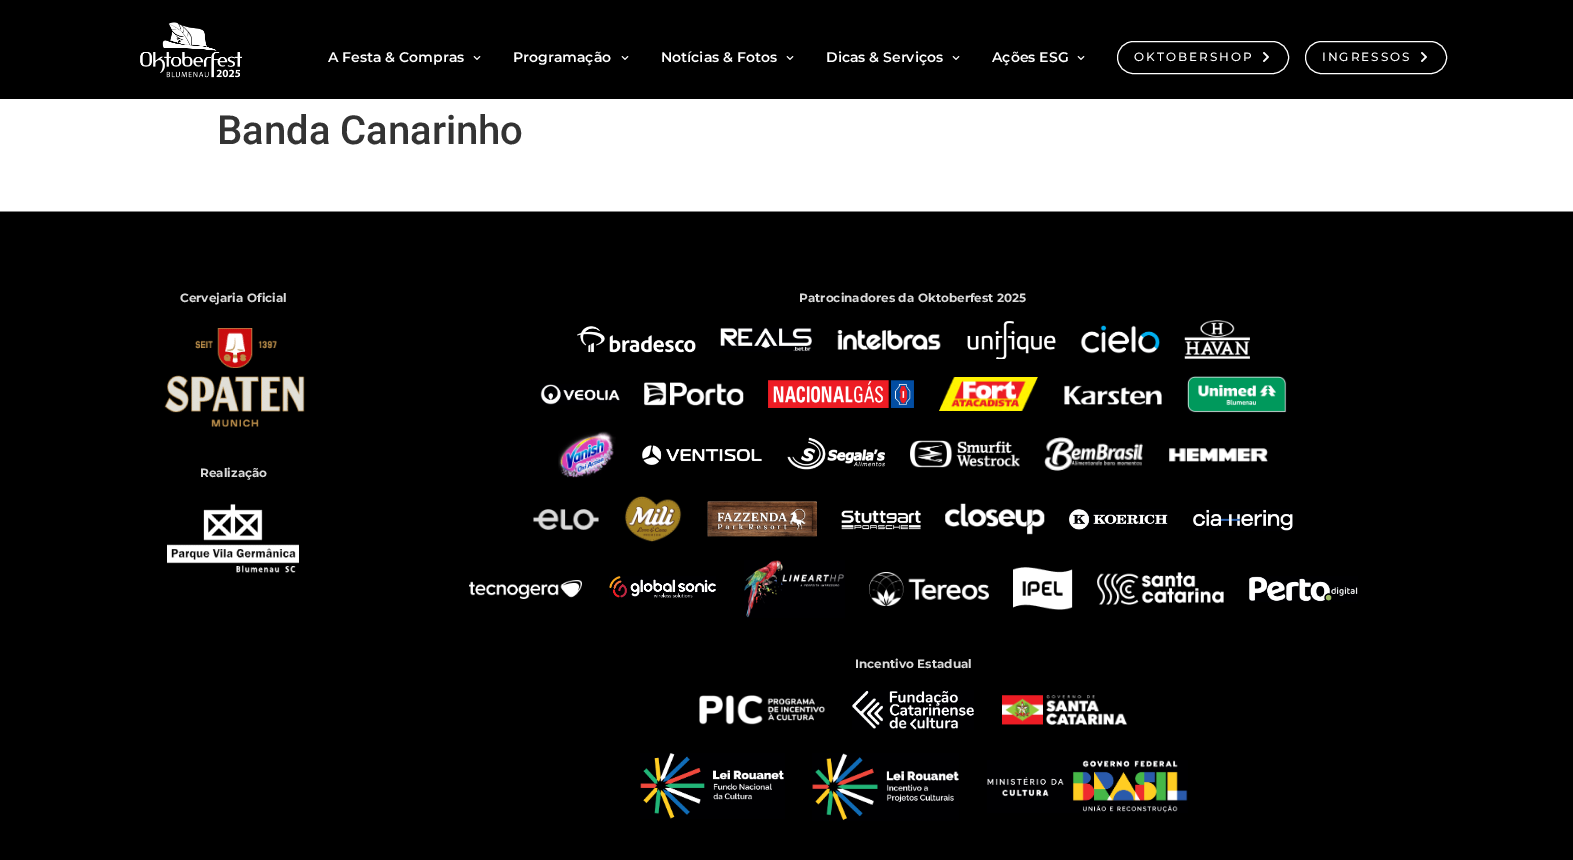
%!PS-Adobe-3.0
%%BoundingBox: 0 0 1573 860
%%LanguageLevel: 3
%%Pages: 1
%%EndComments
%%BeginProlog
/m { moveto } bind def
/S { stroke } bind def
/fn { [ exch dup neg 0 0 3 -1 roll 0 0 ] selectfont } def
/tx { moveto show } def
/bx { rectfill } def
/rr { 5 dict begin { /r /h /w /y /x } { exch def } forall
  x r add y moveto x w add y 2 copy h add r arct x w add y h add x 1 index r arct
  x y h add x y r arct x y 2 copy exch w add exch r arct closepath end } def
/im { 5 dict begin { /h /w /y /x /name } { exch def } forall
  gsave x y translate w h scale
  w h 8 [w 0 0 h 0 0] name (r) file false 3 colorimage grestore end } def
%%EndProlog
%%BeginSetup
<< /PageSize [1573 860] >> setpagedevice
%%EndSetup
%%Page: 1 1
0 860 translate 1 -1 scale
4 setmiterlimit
1 setgray
0 0 1573 860 bx
0 setgray
0 0 1573 99 bx
(image0.raw) 140 22 103 56 im
/Montserrat-SemiBold 14 fn
1 setgray
(A Festa & Compras) 328 62 tx
(image1.raw) 473 56 8 4 im
(Programação) 513 62 tx
(image1.raw) 621 56 8 4 im
(Notícias & Fotos) 661 62 tx
(image1.raw) 786 56 8 4 im
(Dicas & Serviços) 826 62 tx
(image1.raw) 952 56 8 4 im
(Ações ESG) 992 62 tx
(image1.raw) 1077 56 8 4 im
1117.5 41.5 171 32 16 rr S
/Montserrat-Medium 12 fn
1134 61 m 2 0 (OKTOBERSHOP) ashow
(image2.raw) 1263 52 6 10 im
1305.5 41.5 141 32 16 rr S
1322 61 m 2 0 (INGRESSOS) ashow
(image2.raw) 1421 52 6 10 im
/Roboto-Medium 40 fn
0.2 setgray
(Banda Canarinho) 217 144 tx
0 setgray
0 212 1573 648 bx
0.51 setgray
0 211 1573 1 bx
/Montserrat-Bold 12 fn
0.851 setgray
(Cervejaria Oficial) 180 302 tx
(image3.raw) 164 328 141 99 im
(Realização) 200 477 tx
(image4.raw) 167 504 132 69 im
(Patrocinadores da Oktoberfest 2025) 799 302 tx
(image5.raw) 577 326 119 27 im
(image6.raw) 720 327 92 25 im
(image7.raw) 837 330 104 20 im
(image8.raw) 967 321 89 38 im
(image9.raw) 1080 325 80 29 im
(image10.raw) 1184 320 66 39 im
(image11.raw) 540 384 80 21 im
(image12.raw) 644 382 100 24 im
(image13.raw) 768 380 146 28 im
(image14.raw) 939 377 99 34 im
(image15.raw) 1064 385 98 20 im
(image16.raw) 1187 376 100 37 im
(image17.raw) 558 431 58 47 im
(image18.raw) 642 445 120 20 im
(image19.raw) 787 437 98 33 im
(image20.raw) 910 440 110 28 im
(image21.raw) 1044 437 99 34 im
(image22.raw) 1169 448 99 14 im
(image23.raw) 533 509 66 21 im
(image24.raw) 624 496 58 46 im
(image25.raw) 707 501 110 36 im
(image26.raw) 841 510 80 20 im
(image27.raw) 945 503 100 32 im
(image28.raw) 1069 509 99 21 im
(image29.raw) 1193 509 100 22 im
(image30.raw) 469 580 113 19 im
(image31.raw) 609 576 107 22 im
(image32.raw) 744 560 101 58 im
(image33.raw) 869 572 120 34 im
(image34.raw) 1013 567 60 43 im
(image35.raw) 1097 572 127 33 im
(image36.raw) 1249 576 109 26 im
(Incentivo Estadual) 855 668 tx
(image37.raw) 699 695 127 30 im
(image38.raw) 852 690 122 40 im
(image39.raw) 1002 695 126 30 im
(image40.raw) 640 753 145 66 im
(image41.raw) 812 753 147 68 im
(image42.raw) 987 760 201 53 im
showpage
%%EOF
